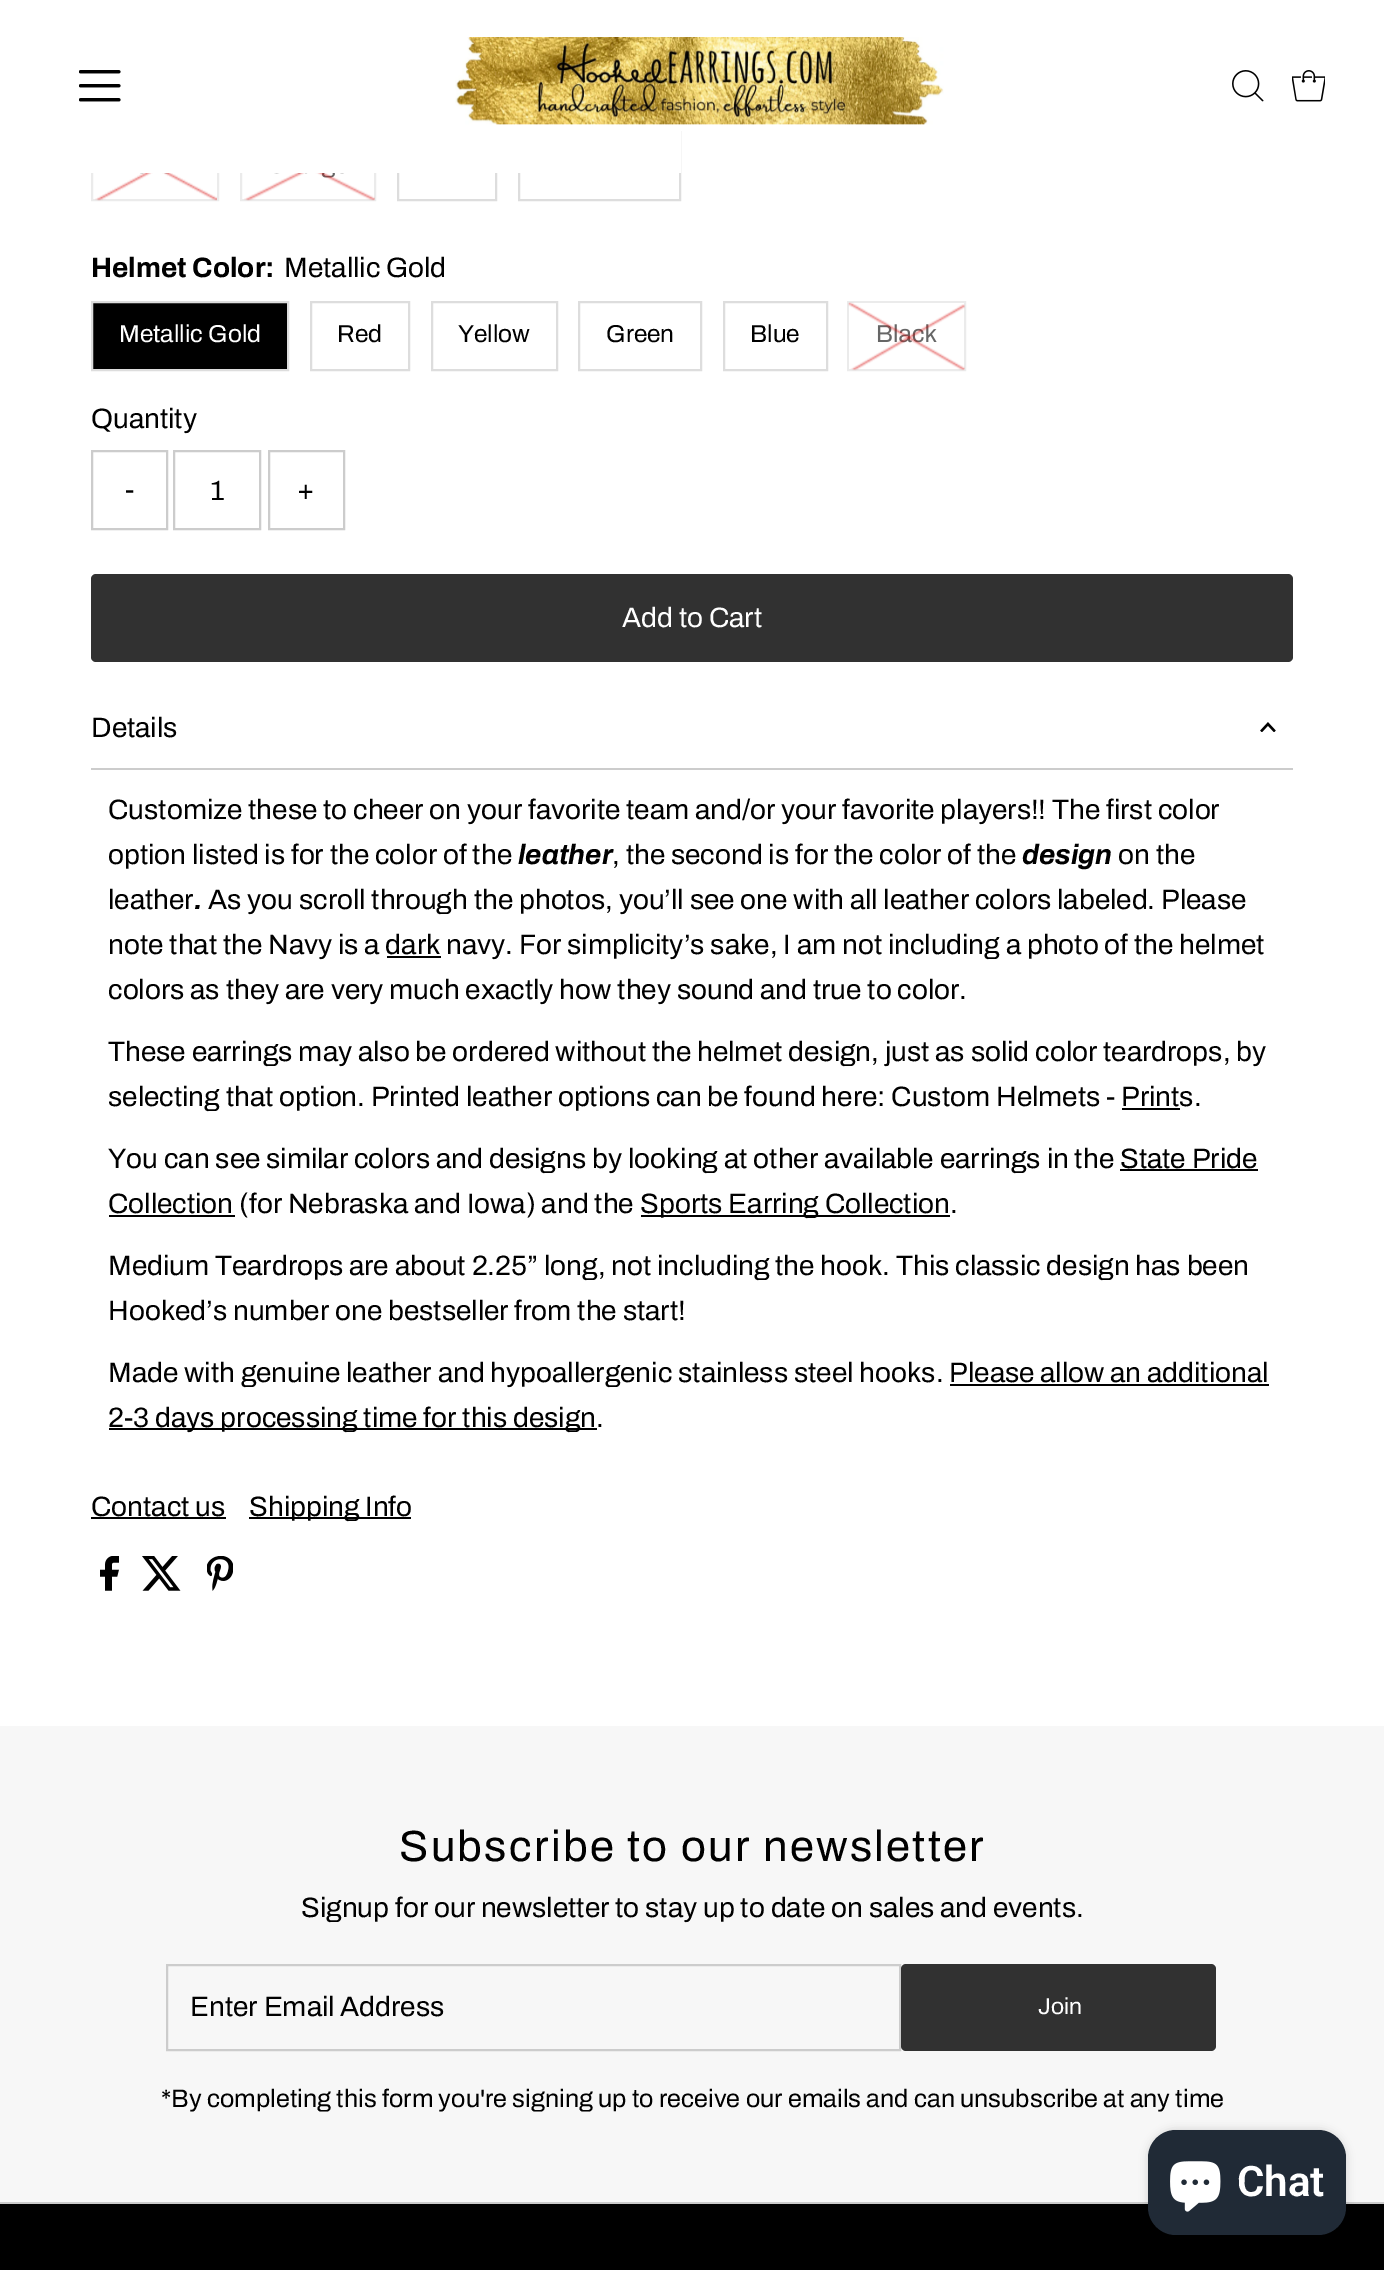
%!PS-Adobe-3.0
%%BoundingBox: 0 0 1384 2270
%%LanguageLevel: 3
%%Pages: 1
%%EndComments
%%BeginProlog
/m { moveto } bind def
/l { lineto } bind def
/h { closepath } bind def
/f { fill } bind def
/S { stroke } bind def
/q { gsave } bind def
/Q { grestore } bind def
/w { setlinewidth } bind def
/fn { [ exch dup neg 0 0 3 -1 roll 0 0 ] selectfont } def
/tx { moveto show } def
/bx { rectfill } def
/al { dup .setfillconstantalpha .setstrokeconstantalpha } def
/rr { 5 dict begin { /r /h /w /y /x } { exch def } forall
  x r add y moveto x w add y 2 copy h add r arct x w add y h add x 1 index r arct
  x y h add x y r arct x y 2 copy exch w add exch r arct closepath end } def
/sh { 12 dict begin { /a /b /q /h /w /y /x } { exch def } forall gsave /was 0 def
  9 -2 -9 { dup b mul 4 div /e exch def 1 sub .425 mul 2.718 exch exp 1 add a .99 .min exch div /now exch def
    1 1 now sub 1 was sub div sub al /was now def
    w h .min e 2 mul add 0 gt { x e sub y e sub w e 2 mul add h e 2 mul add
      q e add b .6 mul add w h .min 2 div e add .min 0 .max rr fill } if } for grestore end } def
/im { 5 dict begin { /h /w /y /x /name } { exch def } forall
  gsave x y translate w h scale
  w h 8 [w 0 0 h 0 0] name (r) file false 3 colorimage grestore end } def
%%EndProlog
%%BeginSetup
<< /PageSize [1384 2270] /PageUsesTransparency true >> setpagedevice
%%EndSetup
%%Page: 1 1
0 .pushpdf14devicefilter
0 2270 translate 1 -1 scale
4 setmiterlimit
1 setgray
0 0 1384 2270 bx
0.922 setgray
2 w
92 132 126 68 rectstroke
241 132 134 68 rectstroke
0.867 setgray
398 132 98 68 rectstroke
519 132 161 68 rectstroke
1 setgray
91 131 590 42 bx
(image0.raw) 79 70 42 32 im
(image1.raw) 455 37 489 88 im
(image2.raw) 1232 70 32 32 im
(image3.raw) 1292 70 33 32 im
(image4.raw) 95 173 122 28 im
(image5.raw) 244 173 131 28 im
/Archivo-Bold 28 fn
0 setgray
(Helmet Color:) 91 277 tx
/Archivo-Regular 28 fn
(Metallic Gold) 284 277 tx
92 302 m 288 302 l 288 370 l 92 370 l h q f Q
0.867 setgray
S
/Archivo-Regular 24.5 fn
1 setgray
(Metallic Gold) 119 342 tx
0.867 setgray
311 302 98 68 rectstroke
0 setgray
(Red) 337 342 tx
0.867 setgray
432 302 125 68 rectstroke
0 setgray
(Yellow) 458 342 tx
0.867 setgray
579 302 122 68 rectstroke
0 setgray
(Green) 606 342 tx
0.867 setgray
724 302 103 68 rectstroke
0 setgray
(Blue) 750 342 tx
0.922 setgray
848 302 117 68 rectstroke
0.4 setgray
(Black) 876 342 tx
(image6.raw) 848 302 117 69 im
/Archivo-Regular 28 fn
0 setgray
(Quantity) 91 428 tx
0.8 setgray
92 451 75 78 rectstroke
0 setgray
(-) 125 499 tx
0.8 setgray
174 451 86 78 rectstroke
0 setgray
(1) 210 500 tx
0.8 setgray
269 451 75 78 rectstroke
0 setgray
(+) 297 499 tx
0.192 setgray
91 574 1202 88 5 rr f
1 setgray
(Add to Cart) 622 627 tx
0.8 setgray
91 768 1202 2 bx
0 setgray
(Details) 91 737 tx
(image7.raw) 1260 722 16 10 im
(Customize these to cheer on your favorite team and/or your favorite players!! The first color) 108 819 tx
(option listed is for the color of the) 108 864 tx
/Archivo-BoldItalic 28 fn
(leather) 518 864 tx
/Archivo-Regular 28 fn
(, the second is for the color of the) 612 864 tx
/Archivo-BoldItalic 28 fn
(design) 1022 864 tx
/Archivo-Regular 28 fn
(on the) 1118 864 tx
(leather) 108 909 tx
/Archivo-BoldItalic 28 fn
(.) 194 909 tx
/Archivo-Regular 28 fn
(As you scroll through the photos, you’ll see one with all leather colors labeled. Please) 208 909 tx
(note that the Navy is a dark navy. For simplicity’s sake, I am not including a photo of the helmet) 108 954 tx
387 956 54 2 bx
(colors as they are very much exactly how they sound and true to color.) 108 999 tx
(These earrings may also be ordered without the helmet design, just as solid color teardrops, by) 108 1061 tx
(selecting that option. Printed leather options can be found here: Custom Helmets - Prints.) 108 1106 tx
1122 1108 58 2 bx
(You can see similar colors and designs by looking at other available earrings in the State Pride) 108 1168 tx
109 1215 126 2 bx
(Collection \(for Nebraska and Iowa\) and the) 108 1213 tx
1120 1169 138 2 bx
641 1215 309 2 bx
(Sports Earring Collection.) 640 1213 tx
(Medium Teardrops are about 2.25” long, not including the hook. This classic design has been) 108 1275 tx
(Hooked’s number one bestseller from the start!) 108 1320 tx
(Made with genuine leather and hypoallergenic stainless steel hooks. Please allow an additional) 108 1382 tx
109 1428 488 2 bx
(2-3 days processing time for this design.) 108 1427 tx
950 1384 319 2 bx
(Contact us) 91 1516 tx
91 1517 135 2 bx
249 1517 162 2 bx
(Shipping Info) 249 1516 tx
(image8.raw) 100 1556 19 35 im
(image9.raw) 142 1556 39 35 im
(image10.raw) 207 1556 26 35 im
0.969 setgray
0 1726 1384 476 bx
/Archivo-Regular 43.75 fn
0 setgray
399 1861 m 2.2 0 (Subscribe to our newsletter) ashow
/Archivo-Regular 28 fn
(Signup for our newsletter to stay up to date on sales and events.) 301 1917 tx
0.8 setgray
167 1965 733 85 rectstroke
0 setgray
(Enter Email Address) 190 2016 tx
0.192 setgray
901 1964 315 87 5 rr f
/Archivo-Regular 23 fn
1 setgray
(Join) 1038 2014 tx
/Archivo-Regular 25.2 fn
0 setgray
(*By completing this form you're signing up to receive our emails and can unsubscribe at any time) 161 2107 tx
0 2204 1384 66 bx
0.8 setgray
0 2202 1384 2 bx
0 setgray
1148 2130 198 105 28 4.5 0.15 sh
0.125 0.165 0.212 setrgbcolor
1148 2130 198 105 28 rr f
(image11.raw) 1170 2161 51 51 im
/Roboto-SemiBold 42 fn
1 setgray
(Chat) 1237 2196 tx
.poppdf14devicefilter showpage
%%EOF
